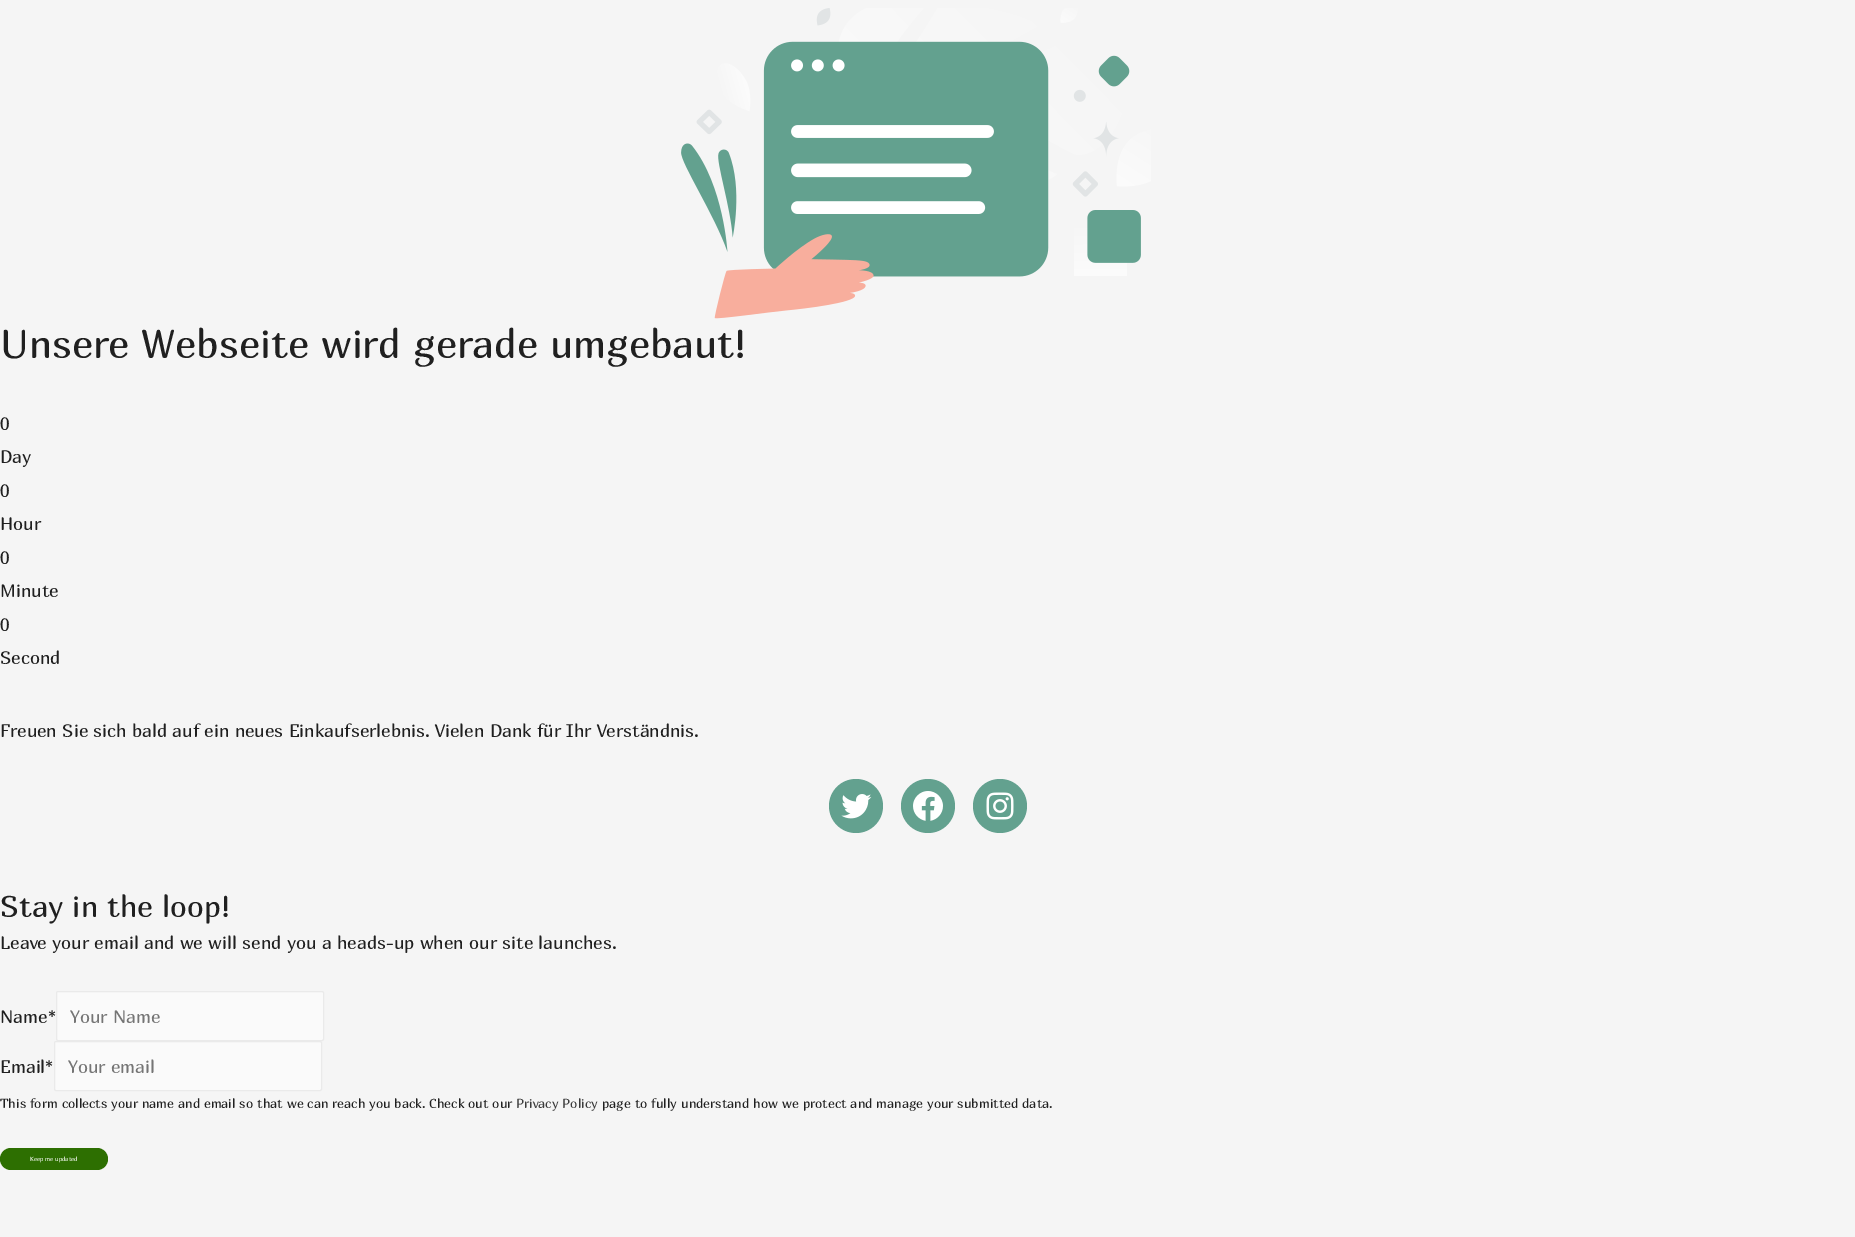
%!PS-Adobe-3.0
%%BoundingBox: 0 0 1855 1237
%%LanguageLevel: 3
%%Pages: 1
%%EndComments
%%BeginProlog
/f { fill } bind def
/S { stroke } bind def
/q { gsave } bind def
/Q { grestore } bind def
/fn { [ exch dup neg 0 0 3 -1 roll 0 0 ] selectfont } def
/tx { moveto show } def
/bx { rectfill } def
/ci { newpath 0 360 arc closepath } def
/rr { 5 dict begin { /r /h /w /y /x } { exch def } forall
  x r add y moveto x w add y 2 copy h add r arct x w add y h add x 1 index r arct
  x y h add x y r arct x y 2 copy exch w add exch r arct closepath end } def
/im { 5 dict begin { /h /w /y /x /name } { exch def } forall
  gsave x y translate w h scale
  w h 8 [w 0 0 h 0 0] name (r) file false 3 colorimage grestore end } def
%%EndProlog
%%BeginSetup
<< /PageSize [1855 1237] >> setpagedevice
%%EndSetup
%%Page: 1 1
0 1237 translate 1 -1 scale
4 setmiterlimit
0.961 setgray
0 0 1855 1237 bx
(image0.raw) 681 8 470 311 im
/Marmelad-Regular 40 fn
0.125 setgray
(Unsere Webseite wird gerade umgebaut!) 0 358 tx
/Marmelad-Regular 18 fn
(0) 0 430 tx
(Day) 0 463 tx
(0) 0 497 tx
(Hour) 0 530 tx
(0) 0 564 tx
(Minute) 0 597 tx
(0) 0 631 tx
(Second) 0 664 tx
(Freuen Sie sich bald auf ein neues Einkaufserlebnis. Vielen Dank für Ihr Verständnis.) 0 737 tx
0.388 0.631 0.561 setrgbcolor
856 806 27 ci f
(image1.raw) 841 794 31 25 im
928 806 27 ci f
(image2.raw) 913 791 30 30 im
1000 806 27 ci f
(image3.raw) 986 792 28 28 im
/Marmelad-Regular 30 fn
0.125 setgray
(Stay in the loop!) 0 917 tx
/Marmelad-Regular 18 fn
(Leave your email and we will send you a heads-up when our site launches.) 0 949 tx
(Name*) 0 1023 tx
0.98 setgray
56.5 991.5 267 49 1.5 rr q f Q
0.918 setgray
S
0.459 setgray
(Your Name) 70 1023 tx
0.125 setgray
(Email*) 0 1073 tx
0.98 setgray
54.5 1041.5 267 49 1.5 rr q f Q
0.918 setgray
S
0.459 setgray
(Your email) 68 1073 tx
/Marmelad-Regular 13 fn
0.125 setgray
(This form collects your name and email so that we can reach you back. Check out our) 0 1108 tx
0.231 setgray
(Privacy Policy) 516 1108 tx
0.125 setgray
(page to fully understand how we protect and manage your submitted data.) 602 1108 tx
0.176 0.435 0.004 setrgbcolor
0 1148 108 22 11 rr f
/Marmelad-Regular 6 fn
1 setgray
(Keep me updated) 30 1161 tx
showpage
%%EOF
